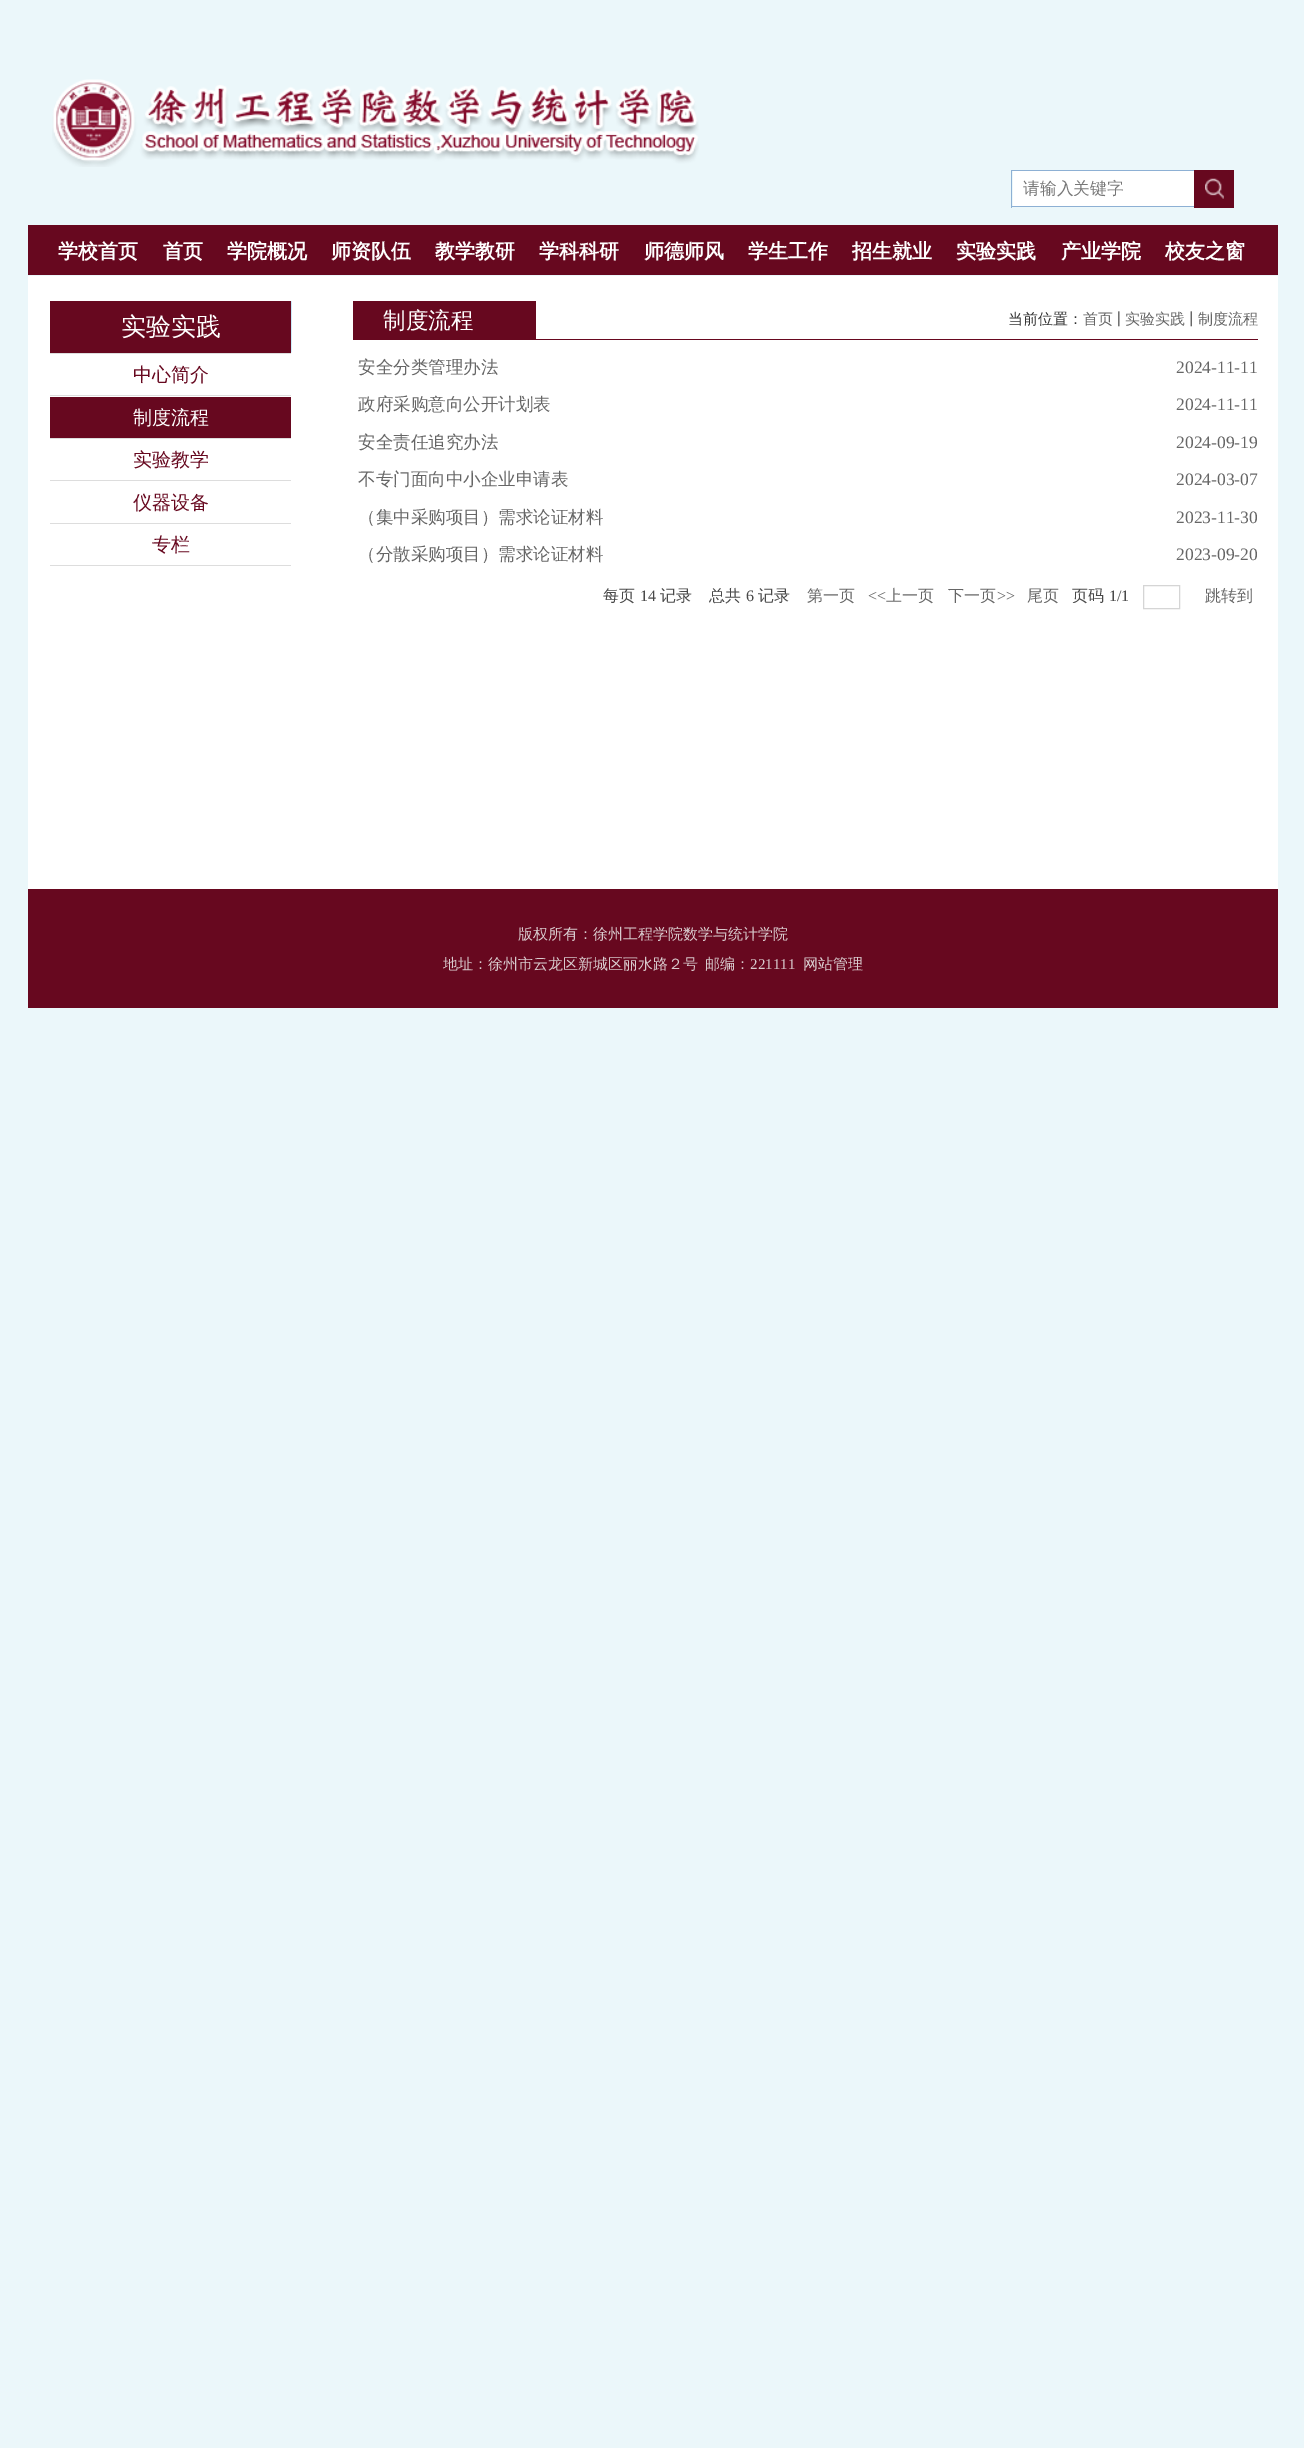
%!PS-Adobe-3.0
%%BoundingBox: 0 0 1304 2448
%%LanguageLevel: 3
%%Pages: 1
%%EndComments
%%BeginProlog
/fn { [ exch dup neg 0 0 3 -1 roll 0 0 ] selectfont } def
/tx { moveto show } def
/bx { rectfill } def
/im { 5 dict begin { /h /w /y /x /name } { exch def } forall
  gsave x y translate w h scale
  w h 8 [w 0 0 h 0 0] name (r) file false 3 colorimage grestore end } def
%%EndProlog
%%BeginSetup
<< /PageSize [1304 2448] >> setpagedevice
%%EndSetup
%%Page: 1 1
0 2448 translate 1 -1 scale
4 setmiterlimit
0.922 0.969 0.98 setrgbcolor
0 0 1304 2448 bx
(image0.raw) 52 79 647 88 im
1 setgray
1013 171 181 35 bx
0.553 0.69 0.831 setrgbcolor
1011 170 183 1 bx
1011 206 183 1 bx
1011 170 1 38 bx
/WenQuanYiZenHei-Medium 16.75 fn
0.467 setgray
(请输入关键字) 1023 194 tx
0.404 0.031 0.122 setrgbcolor
1194 170 40 38 bx
(image1.raw) 1205 178 19 21 im
28 225 1250 50 bx
/WenQuanYiZenHei-Bold 20 fn
1 setgray
(学校首页) 58 258 tx
(首页) 163 258 tx
(学院概况) 227 258 tx
(师资队伍) 331 258 tx
(教学教研) 435 258 tx
(学科科研) 539 258 tx
(师德师风) 644 258 tx
(学生工作) 748 258 tx
(招生就业) 852 258 tx
(实验实践) 956 258 tx
(产业学院) 1061 258 tx
(校友之窗) 1165 258 tx
28 276 1250 613 bx
(image2.raw) 291 301 1 52 im
0.404 0.031 0.122 setrgbcolor
50 301 241 52 bx
/WenQuanYiZenHei-Medium 25 fn
1 setgray
(实验实践) 121 335 tx
0.867 setgray
50 353 241 1 bx
50 395 241 1 bx
/WenQuanYiZenHei-Medium 19 fn
0.404 0.031 0.122 setrgbcolor
(中心简介) 133 381 tx
50 397 241 41 bx
0.867 setgray
50 438 241 1 bx
1 setgray
(制度流程) 133 424 tx
0.867 setgray
50 480 241 1 bx
0.404 0.031 0.122 setrgbcolor
(实验教学) 133 466 tx
0.867 setgray
50 523 241 1 bx
0.404 0.031 0.122 setrgbcolor
(仪器设备) 133 509 tx
0.867 setgray
50 565 241 1 bx
0.404 0.031 0.122 setrgbcolor
(专栏) 152 551 tx
353 339 905 1 bx
353 301 183 38 bx
/WenQuanYiZenHei-Medium 22.5 fn
1 setgray
(制度流程) 383 328 tx
/WenQuanYiZenHei-Medium 15 fn
0.2 setgray
(当前位置：) 1008 324 tx
0.4 setgray
(首页) 1083 324 tx
(image3.raw) 1118 311 2 16 im
(实验实践) 1125 324 tx
(image4.raw) 1190 311 2 16 im
(制度流程) 1198 324 tx
/WenQuanYiZenHei-Medium 17.5 fn
(安全分类管理办法) 358 373 tx
/LiberationSerif-Regular 17.5 fn
(2024-11-11) 1176 373 tx
/WenQuanYiZenHei-Medium 17.5 fn
(政府采购意向公开计划表) 358 410 tx
/LiberationSerif-Regular 17.5 fn
(2024-11-11) 1176 410 tx
/WenQuanYiZenHei-Medium 17.5 fn
(安全责任追究办法) 358 448 tx
/LiberationSerif-Regular 17.5 fn
(2024-09-19) 1176 448 tx
/WenQuanYiZenHei-Medium 17.5 fn
(不专门面向中小企业申请表) 358 485 tx
/LiberationSerif-Regular 17.5 fn
(2024-03-07) 1176 485 tx
/WenQuanYiZenHei-Medium 17.5 fn
(（集中采购项目）需求论证材料) 358 523 tx
/LiberationSerif-Regular 17.5 fn
(2023-11-30) 1176 523 tx
/WenQuanYiZenHei-Medium 17.5 fn
(（分散采购项目）需求论证材料) 358 560 tx
/LiberationSerif-Regular 17.5 fn
(2023-09-20) 1176 560 tx
/WenQuanYiZenHei-Medium 16 fn
0.286 setgray
(每页) 603 601 tx
/LiberationSerif-Regular 16 fn
(14) 640 601 tx
/WenQuanYiZenHei-Medium 16 fn
(记录) 660 601 tx
(总共) 709 601 tx
/LiberationSerif-Regular 16 fn
(6) 746 601 tx
/WenQuanYiZenHei-Medium 16 fn
(记录) 758 601 tx
0.4 setgray
(第一页) 807 601 tx
/LiberationSerif-Regular 16 fn
(<<) 868 601 tx
/WenQuanYiZenHei-Medium 16 fn
(上一页) 886 601 tx
(下一页) 948 601 tx
/LiberationSerif-Regular 16 fn
(>>) 997 601 tx
/WenQuanYiZenHei-Medium 16 fn
(尾页) 1027 601 tx
0.286 setgray
(页码) 1072 601 tx
/LiberationSerif-Regular 16 fn
(1/1) 1109 601 tx
0.835 setgray
1143.5 585.5 36 23 rectstroke
/WenQuanYiZenHei-Medium 16 fn
0.4 setgray
(跳转到) 1205 601 tx
0.404 0.031 0.122 setrgbcolor
28 889 1250 119 bx
/WenQuanYiZenHei-Medium 15 fn
0.851 0.796 0.808 setrgbcolor
(版权所有：徐州工程学院数学与统计学院) 518 939 tx
(地址：徐州市云龙区新城区丽水路２号) 443 969 tx
(邮编：) 705 969 tx
/LiberationSerif-Regular 15 fn
(221111) 750 969 tx
/WenQuanYiZenHei-Medium 15 fn
(网站管理) 803 969 tx
showpage
%%EOF
